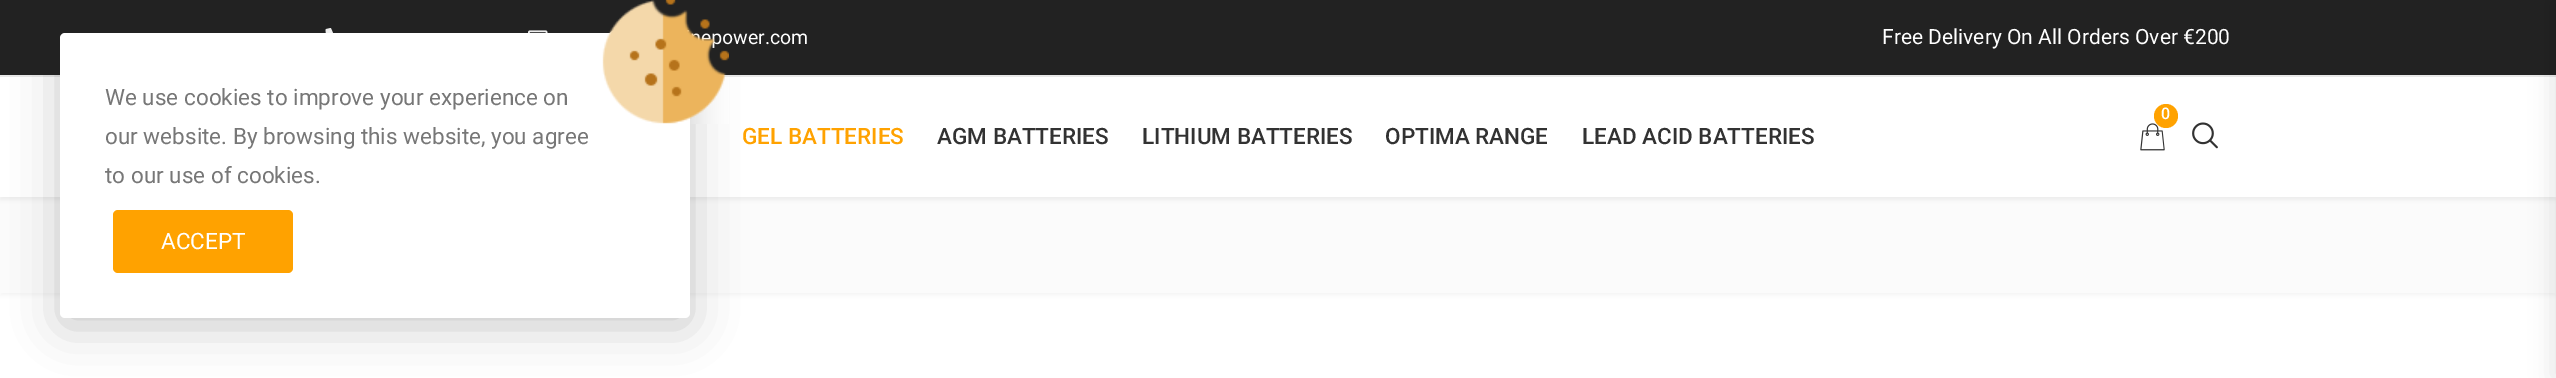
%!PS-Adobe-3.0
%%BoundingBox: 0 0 2556 378
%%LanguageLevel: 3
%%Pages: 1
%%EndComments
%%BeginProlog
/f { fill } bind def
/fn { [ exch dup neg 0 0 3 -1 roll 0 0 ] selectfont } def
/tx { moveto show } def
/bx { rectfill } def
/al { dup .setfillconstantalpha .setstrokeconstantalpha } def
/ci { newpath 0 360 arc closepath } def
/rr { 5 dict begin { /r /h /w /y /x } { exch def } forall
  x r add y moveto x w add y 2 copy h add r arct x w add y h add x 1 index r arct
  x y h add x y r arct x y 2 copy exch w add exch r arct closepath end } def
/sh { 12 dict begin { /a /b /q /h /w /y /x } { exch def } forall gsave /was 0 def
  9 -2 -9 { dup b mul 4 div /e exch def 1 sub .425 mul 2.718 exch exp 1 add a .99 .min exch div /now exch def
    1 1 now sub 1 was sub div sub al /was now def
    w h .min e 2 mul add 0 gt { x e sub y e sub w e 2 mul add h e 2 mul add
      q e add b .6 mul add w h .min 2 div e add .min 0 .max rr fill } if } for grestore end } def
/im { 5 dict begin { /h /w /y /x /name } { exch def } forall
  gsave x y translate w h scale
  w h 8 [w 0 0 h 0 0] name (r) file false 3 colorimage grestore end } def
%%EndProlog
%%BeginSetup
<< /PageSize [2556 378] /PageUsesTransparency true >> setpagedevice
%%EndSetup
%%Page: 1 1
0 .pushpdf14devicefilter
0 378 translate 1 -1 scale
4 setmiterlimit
1 setgray
0 0 2556 378 bx
0 setgray
0 200 2556 96 0 2 0.04 sh
0.984 setgray
0 197 2556 96 bx
0 setgray
0 3 2556 197 0 2 0.05 sh
1 setgray
0 77 2556 120 bx
0.133 setgray
0 0 2556 75 bx
0.91 setgray
0 75 2556 2 bx
(image1.raw) 325 28 8 5 im
(image2.raw) 528 30 20 3 im
0.125 setgray
60 41 630 285 5 22.5 0.25 sh
1 setgray
60 33 630 285 5 rr f
/Roboto-Regular 19.5 fn
(power.com) 711 44 tx
(image0.raw) 602 0 127 124 im
/Roboto-Regular 22.5 fn
0.467 setgray
(We use cookies to improve your experience on) 105 105 tx
(our website. By browsing this website, you agree) 105 144 tx
(to our use of cookies.) 105 183 tx
1 0.635 0 setrgbcolor
113 210 180 63 5 rr f
1 setgray
(ACCEPT) 161 249 tx
/Roboto-Regular 21 fn
(Free Delivery On All Orders Over €200) 1882 44 tx
(image3.raw) 2140 123 25 28 im
1 0.635 0 setrgbcolor
2166 116 12 ci f
/Roboto-Medium 16 fn
1 setgray
(0) 2161 119 tx
(image4.raw) 2192 122 26 27 im
/Roboto-Medium 22.5 fn
1 0.635 0 setrgbcolor
(GEL BATTERIES) 742 144 tx
0.196 setgray
(AGM BATTERIES) 937 144 tx
(LITHIUM BATTERIES) 1142 144 tx
(OPTIMA RANGE) 1385 144 tx
(LEAD ACID BATTERIES) 1582 144 tx
0 setgray
2552 0 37 378 0 11 0.1 sh
.poppdf14devicefilter showpage
%%EOF
